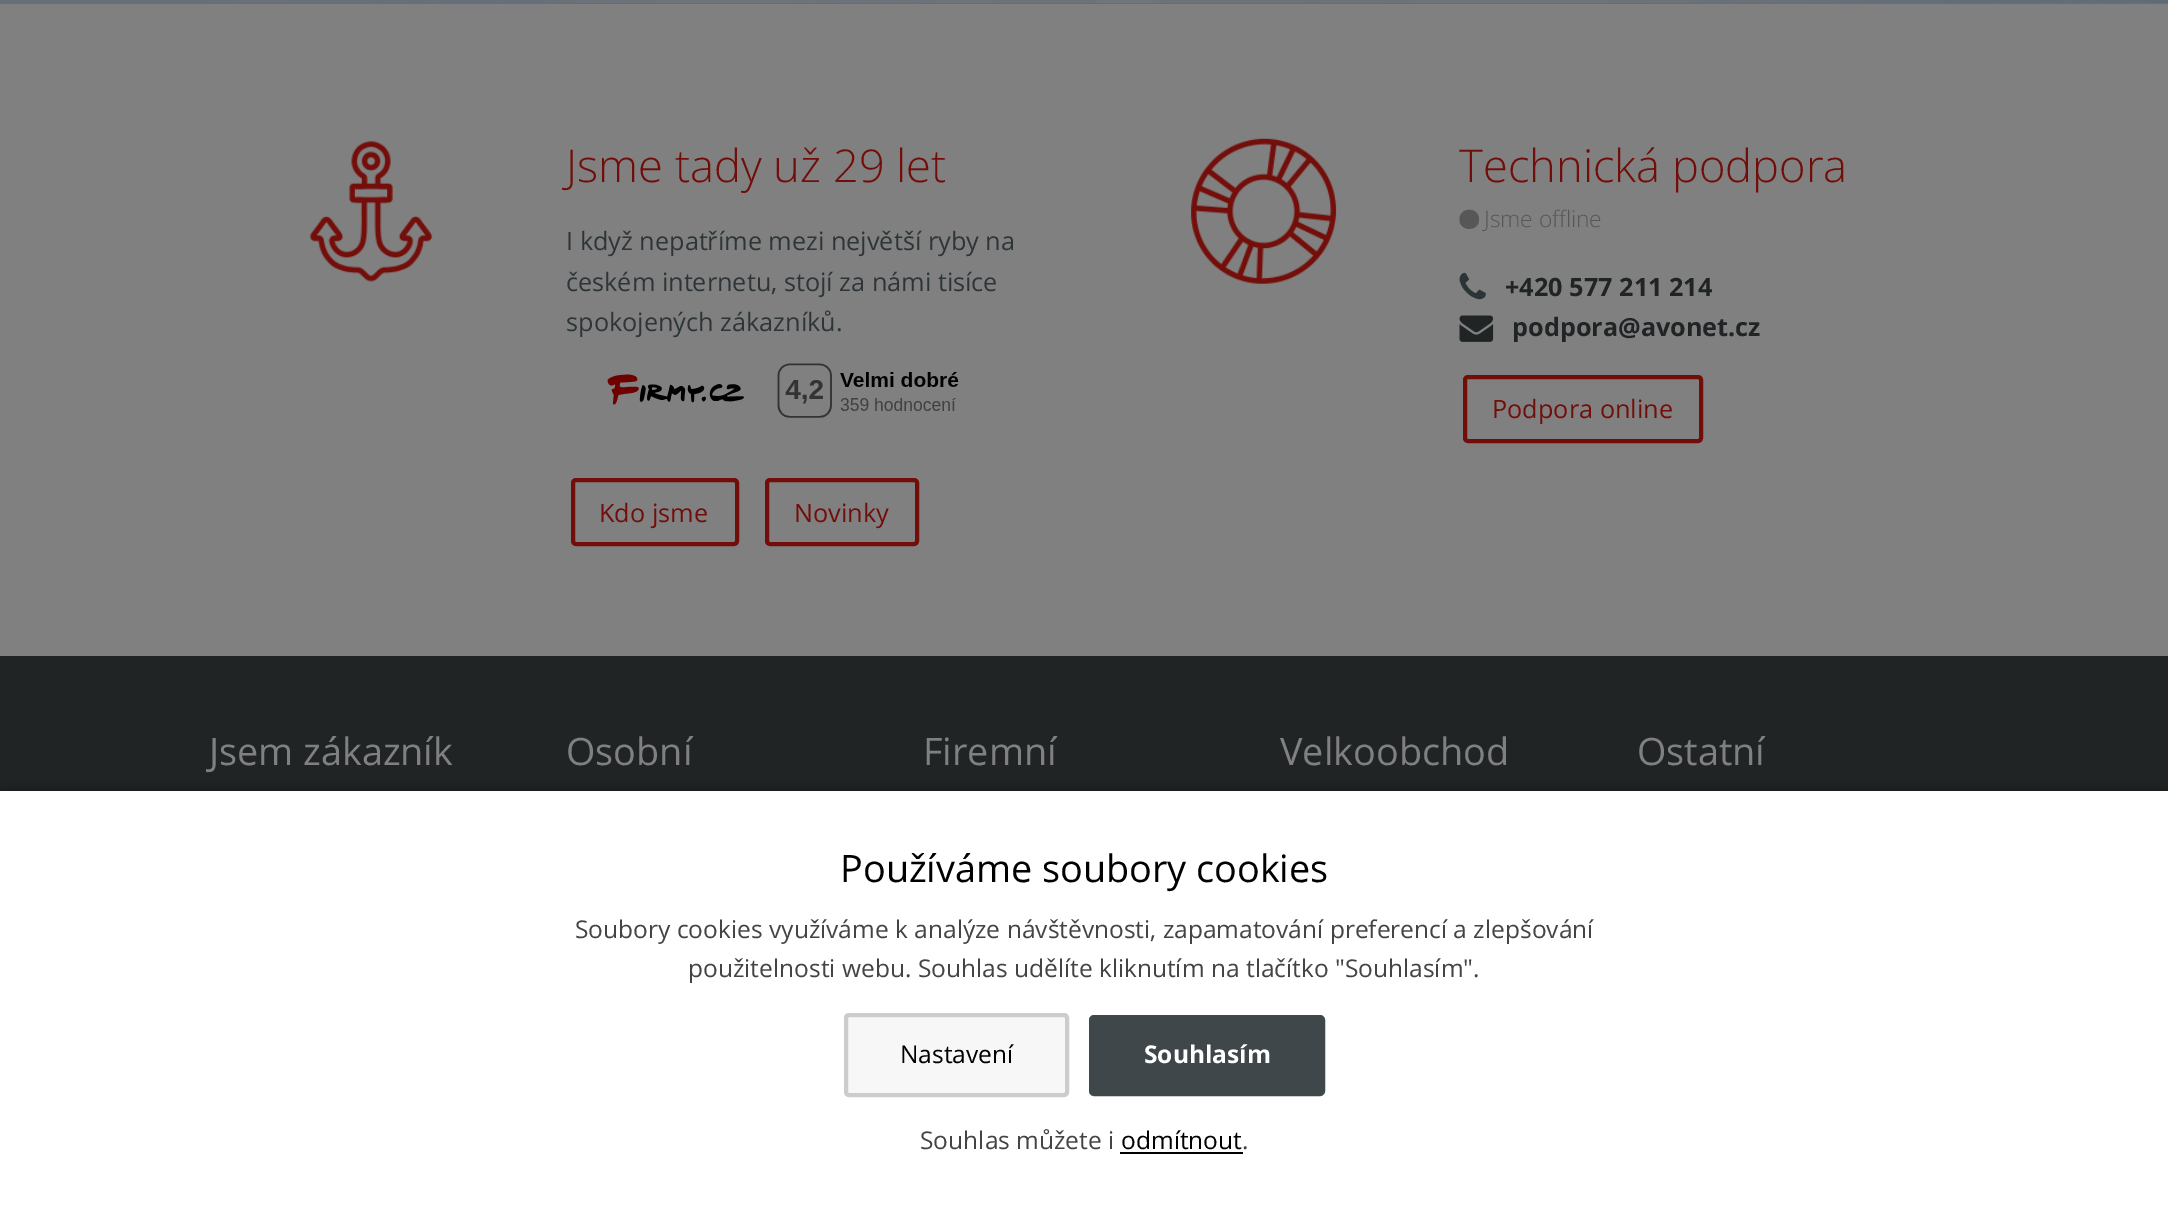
%!PS-Adobe-3.0
%%BoundingBox: 0 0 2168 1229
%%LanguageLevel: 3
%%Pages: 1
%%EndComments
%%BeginProlog
/m { moveto } bind def
/c { curveto } bind def
/h { closepath } bind def
/f { fill } bind def
/S { stroke } bind def
/q { gsave } bind def
/Q { grestore } bind def
/w { setlinewidth } bind def
/fn { [ exch dup neg 0 0 3 -1 roll 0 0 ] selectfont } def
/tx { moveto show } def
/bx { rectfill } def
/al { dup .setfillconstantalpha .setstrokeconstantalpha } def
/rr { 5 dict begin { /r /h /w /y /x } { exch def } forall
  x r add y moveto x w add y 2 copy h add r arct x w add y h add x 1 index r arct
  x y h add x y r arct x y 2 copy exch w add exch r arct closepath end } def
/sh { 12 dict begin { /a /b /q /h /w /y /x } { exch def } forall gsave /was 0 def
  9 -2 -9 { dup b mul 4 div /e exch def 1 sub .425 mul 2.718 exch exp 1 add a .99 .min exch div /now exch def
    1 1 now sub 1 was sub div sub al /was now def
    w h .min e 2 mul add 0 gt { x e sub y e sub w e 2 mul add h e 2 mul add
      q e add b .6 mul add w h .min 2 div e add .min 0 .max rr fill } if } for grestore end } def
/im { 5 dict begin { /h /w /y /x /name } { exch def } forall
  gsave x y translate w h scale
  w h 8 [w 0 0 h 0 0] name (r) file false 3 colorimage grestore end } def
%%EndProlog
%%BeginSetup
<< /PageSize [2168 1229] /PageUsesTransparency true >> setpagedevice
%%EndSetup
%%Page: 1 1
0 .pushpdf14devicefilter
0 1229 translate 1 -1 scale
4 setmiterlimit
0.502 setgray
0 0 2168 1229 bx
0.404 0.435 0.463 setrgbcolor
0 0 2168 4 bx
(image0.raw) 208 0 1960 3 im
(image1.raw) 310 141 123 141 im
/OpenSans-Light 45.25 fn
0.447 0.055 0.039 setrgbcolor
(Jsme tady už 29 let) 566 182 tx
/OpenSans-Regular 25.25 fn
0.176 0.208 0.22 setrgbcolor
(I když nepatříme mezi největší ryby na) 566 250 tx
(českém internetu, stojí za námi tisíce) 566 291 tx
(spokojených zákazníků.) 566 331 tx
(image2.raw) 607 363 352 55 im
0.447 0.055 0.039 setrgbcolor
4 w
573 480 164 64 3 rr S
(Kdo jsme) 599 522 tx
767 480 150 64 3 rr S
(Novinky) 794 522 tx
(image3.raw) 1191 138 146 146 im
/OpenSans-Light 45.25 fn
(Technická podpora) 1459 182 tx
0.341 setgray
1479 219.5 m 1479 206.5 1459.5 206.5 1459.5 219.5 c 1459.5 232 1479 232 1479 219.5 c h f
/OpenSans-Light 22.75 fn
(Jsme offline) 1484 227 tx
(image4.raw) 1459 272 27 28 im
/OpenSans-Bold 25.25 fn
0.125 0.141 0.145 setrgbcolor
(+420 577 211 214) 1505 296 tx
(image5.raw) 1459 315 35 27 im
(podpora@avonet.cz) 1512 336 tx
0.447 0.055 0.039 setrgbcolor
1465 377 236 64 3 rr S
/OpenSans-Regular 25.25 fn
(Podpora online) 1492 418 tx
0.125 0.141 0.145 setrgbcolor
0 656 2168 135 bx
/OpenSans-Regular 37.75 fn
0.502 setgray
(Jsem zákazník) 209 765 tx
(Osobní) 566 765 tx
(Firemní) 923 765 tx
(Velkoobchod) 1280 765 tx
(Ostatní) 1637 765 tx
0 setgray
0 788 2168 439 0 7 0.25 sh
1 setgray
0 791 2168 438 bx
0 setgray
(Používáme soubory cookies) 840 882 tx
/OpenSans-Regular 24.5 fn
0.267 setgray
(Soubory cookies využíváme k analýze návštěvnosti, zapamatování preferencí a zlepšování) 575 938 tx
(použitelnosti webu. Souhlas udělíte kliknutím na tlačítko "Souhlasím".) 688 977 tx
0.969 setgray
846 1015 221 80 3 rr q f Q
0.8 setgray
S
0 setgray
(Nastavení) 900 1063 tx
0.247 0.278 0.29 setrgbcolor
1090 1016 234 79 4 rr q f Q
2 w
S
/OpenSans-Bold 24.5 fn
1 setgray
(Souhlasím) 1144 1063 tx
/OpenSans-Regular 24.5 fn
0.267 setgray
(Souhlas můžete i) 920 1149 tx
0 setgray
(odmítnout) 1121 1149 tx
1120 1152 123 2 bx
0.267 setgray
(.) 1242 1149 tx
.poppdf14devicefilter showpage
%%EOF
